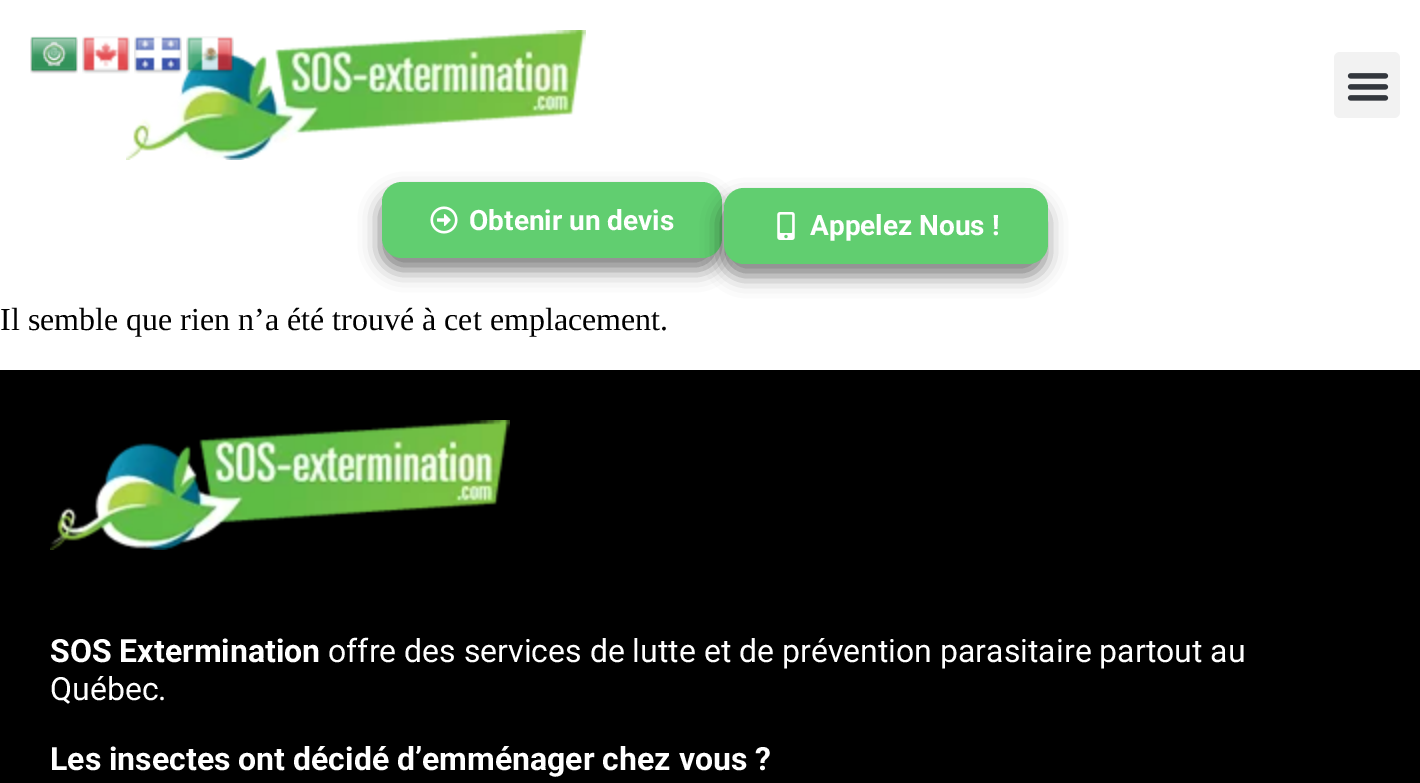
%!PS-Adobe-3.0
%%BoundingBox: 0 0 1420 783
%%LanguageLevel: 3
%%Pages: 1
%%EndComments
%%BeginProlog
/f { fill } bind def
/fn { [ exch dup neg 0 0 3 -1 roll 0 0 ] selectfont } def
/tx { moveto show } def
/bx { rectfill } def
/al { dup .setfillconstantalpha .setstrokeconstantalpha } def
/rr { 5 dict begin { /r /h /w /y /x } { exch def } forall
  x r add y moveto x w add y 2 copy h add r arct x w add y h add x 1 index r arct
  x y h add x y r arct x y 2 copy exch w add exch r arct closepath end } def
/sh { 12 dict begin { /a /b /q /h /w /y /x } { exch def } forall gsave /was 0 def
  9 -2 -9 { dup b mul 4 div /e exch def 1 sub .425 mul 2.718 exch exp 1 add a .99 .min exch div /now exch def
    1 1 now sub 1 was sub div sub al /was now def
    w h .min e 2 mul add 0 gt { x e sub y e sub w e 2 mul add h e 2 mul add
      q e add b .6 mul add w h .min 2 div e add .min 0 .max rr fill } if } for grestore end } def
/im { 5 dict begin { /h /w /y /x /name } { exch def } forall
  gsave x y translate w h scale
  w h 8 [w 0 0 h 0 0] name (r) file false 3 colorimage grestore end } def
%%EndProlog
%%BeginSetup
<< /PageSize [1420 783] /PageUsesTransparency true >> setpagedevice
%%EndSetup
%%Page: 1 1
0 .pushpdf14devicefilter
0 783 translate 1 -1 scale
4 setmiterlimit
1 setgray
0 0 1420 783 bx
(image0.raw) 30 36 48 38 im
(image4.raw) 126 30 460 130 im
(image1.raw) 82 36 48 38 im
(image2.raw) 134 36 48 38 im
(image3.raw) 186 36 48 38 im
0.949 setgray
1334 52 66 66 6 rr f
(image5.raw) 1347 73 42 28 im
0 setgray
380 194 340 76 20 10 0.5 sh
0.38 0.808 0.439 setrgbcolor
382 182 340 76 20 rr f
(image6.raw) 430 206 28 28 im
/Roboto-Bold 28 fn
1 setgray
(Obtenir un devis) 469 230 tx
0 setgray
722 200 324 76 20 10 0.5 sh
0.38 0.808 0.439 setrgbcolor
724 188 324 76 20 rr f
(image7.raw) 777 212 18 28 im
1 setgray
(Appelez Nous !) 810 235 tx
/LiberationSerif-Regular 32 fn
0 setgray
(Il semble que rien n’a été trouvé à cet emplacement.) 0 330 tx
0 370 1420 413 bx
(image8.raw) 50 420 460 130 im
/Roboto-Bold 32 fn
1 setgray
(SOS Extermination) 50 662 tx
/Roboto-Regular 32 fn
(offre des services de lutte et de prévention parasitaire partout au) 328 662 tx
(Québec.) 50 700 tx
/Roboto-Bold 32 fn
(Les insectes ont décidé d’emménager chez vous ?) 50 770 tx
.poppdf14devicefilter showpage
%%EOF
